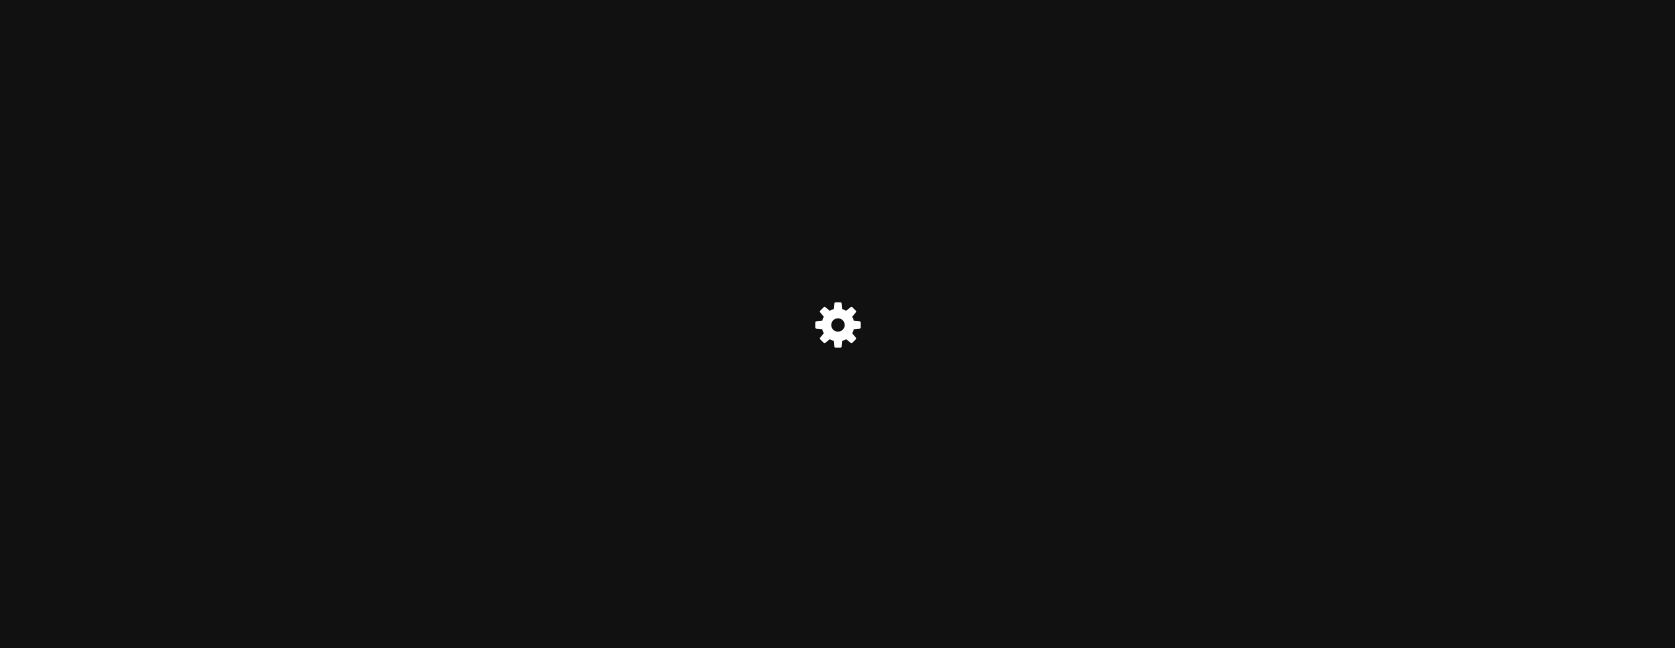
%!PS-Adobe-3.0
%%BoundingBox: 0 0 1675 648
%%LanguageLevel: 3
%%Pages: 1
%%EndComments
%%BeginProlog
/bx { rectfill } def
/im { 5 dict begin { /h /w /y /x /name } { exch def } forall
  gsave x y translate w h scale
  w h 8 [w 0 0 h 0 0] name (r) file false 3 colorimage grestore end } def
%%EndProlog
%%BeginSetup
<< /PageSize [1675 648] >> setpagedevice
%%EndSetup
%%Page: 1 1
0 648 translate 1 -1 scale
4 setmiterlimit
0.067 setgray
0 0 1675 648 bx
(image0.raw) 815 302 46 46 im
showpage
%%EOF
